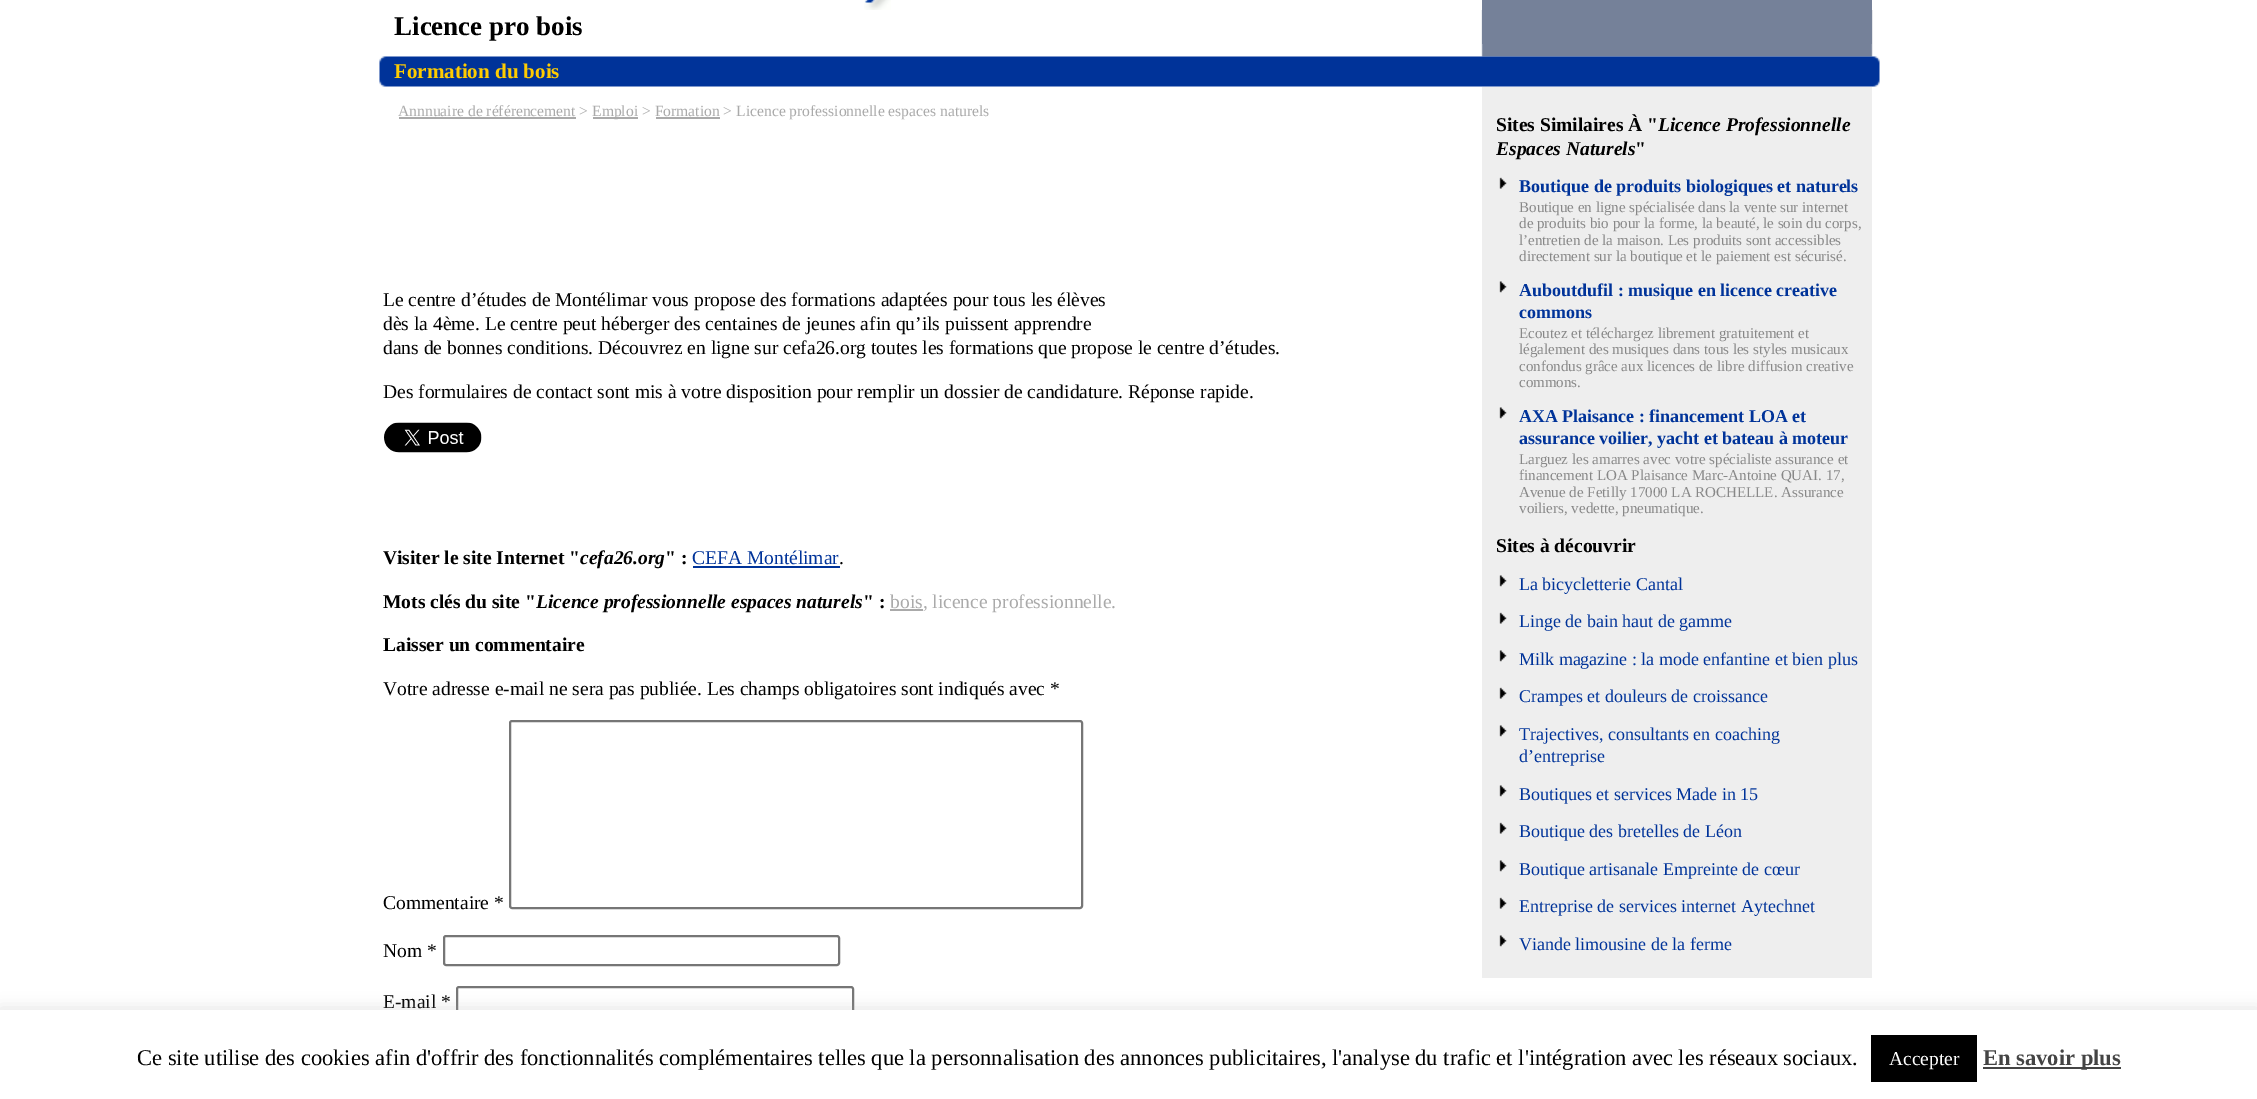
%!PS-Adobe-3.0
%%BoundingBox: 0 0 2257 1099
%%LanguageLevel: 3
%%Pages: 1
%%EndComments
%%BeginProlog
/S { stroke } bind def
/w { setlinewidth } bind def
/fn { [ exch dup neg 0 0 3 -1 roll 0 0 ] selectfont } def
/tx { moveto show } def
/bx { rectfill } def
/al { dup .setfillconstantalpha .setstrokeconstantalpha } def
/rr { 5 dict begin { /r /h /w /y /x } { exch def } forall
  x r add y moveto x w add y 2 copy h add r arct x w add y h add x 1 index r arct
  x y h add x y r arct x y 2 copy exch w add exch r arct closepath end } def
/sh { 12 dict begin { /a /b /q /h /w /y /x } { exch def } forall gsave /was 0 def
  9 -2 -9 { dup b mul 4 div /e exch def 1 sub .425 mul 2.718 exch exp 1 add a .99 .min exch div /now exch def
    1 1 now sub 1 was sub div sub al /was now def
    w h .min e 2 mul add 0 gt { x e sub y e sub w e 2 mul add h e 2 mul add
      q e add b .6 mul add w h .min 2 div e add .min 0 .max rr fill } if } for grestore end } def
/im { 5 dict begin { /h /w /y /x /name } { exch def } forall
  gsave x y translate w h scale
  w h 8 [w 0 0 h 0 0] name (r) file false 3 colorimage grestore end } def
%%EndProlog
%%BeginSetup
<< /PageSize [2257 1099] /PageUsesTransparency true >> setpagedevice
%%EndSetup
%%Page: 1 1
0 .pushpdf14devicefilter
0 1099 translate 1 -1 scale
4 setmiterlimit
1 setgray
0 0 2257 1099 bx
(image0.raw) 1481 10 392 47 im
/LiberationSerif-Bold 27 fn
0 setgray
(Licence pro bois) 394 35 tx
(image1.raw) 864 0 27 10 im
0.459 0.506 0.6 setrgbcolor
1482 0 390 44 bx
(image2.raw) 379 56 1501 31 im
/LiberationSerif-Bold 21 fn
1 0.8 0 setrgbcolor
(Formation du bois) 394 78 tx
/LiberationSerif-Regular 15.6 fn
0.667 setgray
(Annnuaire de référencement >) 398 116 tx
399 117 177 2 bx
593 117 45 2 bx
(Emploi > Formation > Licence professionnelle espaces naturels) 592 116 tx
656 117 64 2 bx
/LiberationSerif-Regular 19.5 fn
0 setgray
(Le centre d’études de Montélimar vous propose des formations adaptées pour tous les élèves) 383 306 tx
(dès la 4ème. Le centre peut héberger des centaines de jeunes afin qu’ils puissent apprendre) 383 330 tx
(dans de bonnes conditions. Découvrez en ligne sur cefa26.org toutes les formations que propose le centre d’études.) 383 354 tx
(Des formulaires de contact sont mis à votre disposition pour remplir un dossier de candidature. Réponse rapide.) 383 398 tx
(image3.raw) 384 422 98 31 im
/LiberationSerif-Bold 19.5 fn
(Visiter le site Internet ") 383 564 tx
/LiberationSerif-BoldItalic 19.5 fn
(cefa26.org) 580 564 tx
/LiberationSerif-Bold 19.5 fn
(" :) 665 564 tx
/LiberationSerif-Regular 19.5 fn
0 0.2 0.6 setrgbcolor
(CEFA Montélimar) 692 564 tx
693 566 147 2 bx
0 setgray
(.) 839 564 tx
/LiberationSerif-Bold 19.5 fn
(Mots clés du site ") 383 608 tx
/LiberationSerif-BoldItalic 19.5 fn
(Licence professionnelle espaces naturels) 536 608 tx
/LiberationSerif-Bold 19.5 fn
(" :) 863 608 tx
0.667 setgray
890 609 33 2 bx
/LiberationSerif-Regular 19.5 fn
(bois, licence professionnelle.) 890 608 tx
/LiberationSerif-Bold 19.5 fn
0 setgray
(Laisser un commentaire) 383 651 tx
/LiberationSerif-Regular 19.5 fn
(Votre adresse e-mail ne sera pas publiée. Les champs obligatoires sont indiqués avec *) 383 695 tx
(Commentaire *) 383 909 tx
0.463 setgray
2 w
510 721 572 187 2 rr S
0 setgray
(Nom *) 383 957 tx
0.463 setgray
444 936 395 29 2 rr S
0 setgray
(E-mail *) 383 1008 tx
0.463 setgray
457 987 396 29 2 rr S
0.933 setgray
1482 87 390 891 bx
/LiberationSerif-Bold 19.5 fn
0 setgray
(Sites Similaires À ") 1496 131 tx
/LiberationSerif-BoldItalic 19.5 fn
(Licence Professionnelle) 1658 131 tx
(Espaces Naturels) 1496 155 tx
/LiberationSerif-Bold 19.5 fn
(") 1635 155 tx
(image4.raw) 1499 177 8 12 im
/LiberationSerif-Bold 18 fn
0 0.2 0.6 setrgbcolor
(Boutique de produits biologiques et naturels) 1519 192 tx
/LiberationSerif-Regular 15 fn
0.533 setgray
(Boutique en ligne spécialisée dans la vente sur internet) 1519 212 tx
(de produits bio pour la forme, la beauté, le soin du corps,) 1519 228 tx
(l’entretien de la maison. Les produits sont accessibles) 1519 245 tx
(directement sur la boutique et le paiement est sécurisé.) 1519 261 tx
(image5.raw) 1499 281 8 12 im
/LiberationSerif-Bold 18 fn
0 0.2 0.6 setrgbcolor
(Auboutdufil : musique en licence creative) 1519 296 tx
(commons) 1519 318 tx
/LiberationSerif-Regular 15 fn
0.533 setgray
(Ecoutez et téléchargez librement gratuitement et) 1519 338 tx
(légalement des musiques dans tous les styles musicaux) 1519 354 tx
(confondus grâce aux licences de libre diffusion creative) 1519 371 tx
(commons.) 1519 387 tx
(image5.raw) 1499 407 8 12 im
/LiberationSerif-Bold 18 fn
0 0.2 0.6 setrgbcolor
(AXA Plaisance : financement LOA et) 1519 422 tx
(assurance voilier, yacht et bateau à moteur) 1519 444 tx
/LiberationSerif-Regular 15 fn
0.533 setgray
(Larguez les amarres avec votre spécialiste assurance et) 1519 464 tx
(financement LOA Plaisance Marc-Antoine QUAI. 17,) 1519 480 tx
(Avenue de Fetilly 17000 LA ROCHELLE. Assurance) 1519 497 tx
(voiliers, vedette, pneumatique.) 1519 513 tx
/LiberationSerif-Bold 19.5 fn
0 setgray
(Sites à découvrir) 1496 552 tx
(image5.raw) 1499 575 8 12 im
/LiberationSerif-Regular 18 fn
0 0.2 0.6 setrgbcolor
(La bicycletterie Cantal) 1519 590 tx
(image4.raw) 1499 612 8 12 im
(Linge de bain haut de gamme) 1519 627 tx
(image5.raw) 1499 650 8 12 im
(Milk magazine : la mode enfantine et bien plus) 1519 665 tx
(image4.raw) 1499 687 8 12 im
(Crampes et douleurs de croissance) 1519 702 tx
(image5.raw) 1499 725 8 12 im
(Trajectives, consultants en coaching) 1519 740 tx
(d’entreprise) 1519 762 tx
(image5.raw) 1499 785 8 12 im
(Boutiques et services Made in 15) 1519 800 tx
(image4.raw) 1499 822 8 12 im
(Boutique des bretelles de Léon) 1519 837 tx
(image5.raw) 1499 860 8 12 im
(Boutique artisanale Empreinte de cœur) 1519 875 tx
(image4.raw) 1499 897 8 12 im
(Entreprise de services internet Aytechnet) 1519 912 tx
(image5.raw) 1499 935 8 12 im
(Viande limousine de la ferme) 1519 950 tx
0.675 0.671 0.671 setrgbcolor
0 1008 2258 90 0 7.5 0.3 sh
1 setgray
0 1010 2257 89 bx
/LiberationSerif-Regular 22.5 fn
0 setgray
(Ce site utilise des cookies afin d'offrir des fonctionnalités complémentaires telles que la personnalisation des annonces publicitaires, l'analyse du trafic et l'intégration avec les réseaux sociaux.) 137 1065 tx
1871 1035 106 47 bx
/LiberationSerif-Regular 19.5 fn
1 setgray
(Accepter) 1889 1065 tx
0.267 setgray
1983 1067 138 2 bx
/LiberationSerif-Bold 22.5 fn
(En savoir plus) 1983 1065 tx
.poppdf14devicefilter showpage
%%EOF
